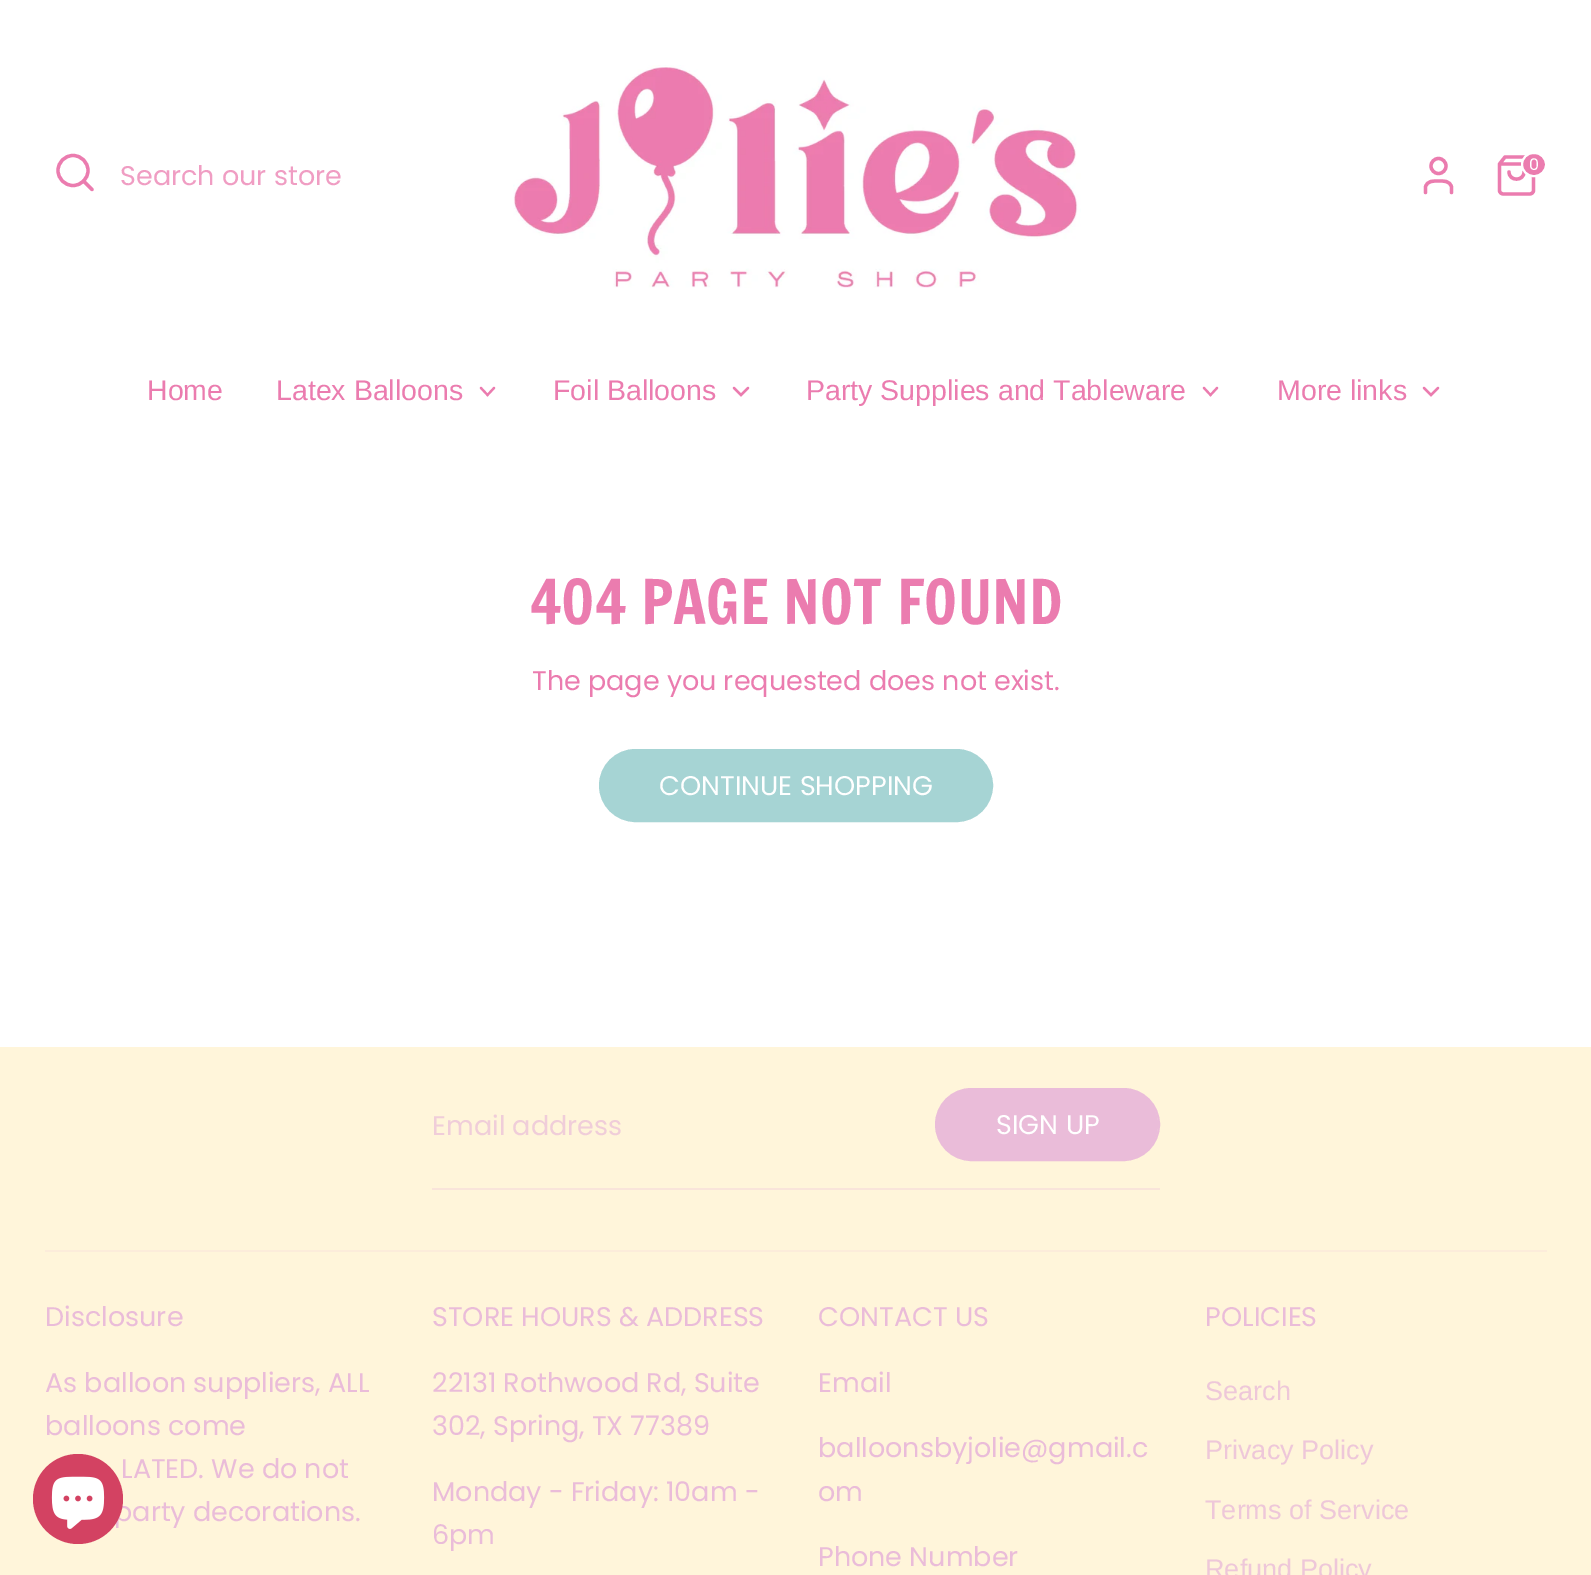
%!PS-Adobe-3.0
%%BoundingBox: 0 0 1591 1575
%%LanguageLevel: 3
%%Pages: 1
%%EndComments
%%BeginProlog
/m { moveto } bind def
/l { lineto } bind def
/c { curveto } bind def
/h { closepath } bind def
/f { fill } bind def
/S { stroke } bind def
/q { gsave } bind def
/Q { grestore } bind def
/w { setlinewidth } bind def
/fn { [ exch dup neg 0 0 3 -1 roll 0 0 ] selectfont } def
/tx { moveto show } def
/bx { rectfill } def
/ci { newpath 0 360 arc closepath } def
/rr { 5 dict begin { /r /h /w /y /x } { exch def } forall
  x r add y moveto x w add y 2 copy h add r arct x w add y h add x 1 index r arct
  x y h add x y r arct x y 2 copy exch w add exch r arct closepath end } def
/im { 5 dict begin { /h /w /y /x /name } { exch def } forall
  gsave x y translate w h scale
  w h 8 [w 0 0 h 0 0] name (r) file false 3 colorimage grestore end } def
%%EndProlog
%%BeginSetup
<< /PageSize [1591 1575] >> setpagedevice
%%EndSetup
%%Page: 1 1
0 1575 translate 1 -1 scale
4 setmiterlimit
1 setgray
0 0 1591 1575 bx
(image0.raw) 513 65 568 223 im
0.922 0.486 0.686 setrgbcolor
3.3 w
1 setlinecap
1 setlinejoin
1451.5 192.5 m 1451.5 187 l 1450 180.5 1443.5 181 1438.5 181 c 1433.5 181 1427 180.5 1425.5 187 c 1425.5 192.5 l S
0 setlinecap
0 setlinejoin
1438.5 166 7.5 ci S
1 setlinecap
1 setlinejoin
1505 157 m 1499.5 164 l 1499.5 190.5 l 1499.5 192.5 1501.5 194 1503.5 194 c 1529.5 194 l 1531.5 194 1533.5 192.5 1533.5 190.5 c 1533.5 164 l 1528 157 l h 1499.5 164 m 1533.5 164 l 1524 172 m 1524 181.5 1509 181.5 1509 172 c S
1522 153 24 23 11.5 rr q f Q
1 setgray
2 w
0 setlinecap
0 setlinejoin
S
/Poppins-Regular 16 fn
(0) 1529 170 tx
0.922 0.486 0.686 setrgbcolor
3.3 w
73 170.5 15 ci S
1 setlinecap
1 setlinejoin
92 189.5 m 83.5 181 l S
/Poppins-Regular 27 fn
0.941 0.616 0.765 setrgbcolor
(Search our store) 120 185 tx
/LiberationSans-Regular 28.5 fn
0.922 0.486 0.686 setrgbcolor
(Home) 147 400 tx
(Latex Balloons) 276 400 tx
2.2 w
0 setlinejoin
481 388 m 487.5 395 l 494 388 l S
(Foil Balloons) 553 400 tx
734 388 m 741 395 l 748 388 l S
(Party Supplies and Tableware) 806 400 tx
1204 388 m 1210.5 395 l 1217 388 l S
(More links) 1277 400 tx
1424 388 m 1431 395 l 1438 388 l S
/FrancoisOne-Regular 60.25 fn
(404 PAGE NOT FOUND) 530 624 tx
/Poppins-Regular 27 fn
(The page you requested does not exist.) 532 690 tx
0.651 0.831 0.831 setrgbcolor
2 w
0 setlinecap
600 750 392 71 35.5 rr S
600 750 392 71 35.5 rr f
1 setgray
(CONTINUE SHOPPING) 659 795 tx
1 0.961 0.855 setrgbcolor
0 1047 1591 528 bx
0.976 0.894 0.855 setrgbcolor
432 1188 728 2 bx
0.941 0.804 0.851 setrgbcolor
(Email address) 432 1135 tx
0.918 0.737 0.851 setrgbcolor
936 1089 223 71 35.5 rr S
936 1089 222 71 35.5 rr f
1 setgray
(SIGN UP) 996 1134 tx
0.988 0.925 0.855 setrgbcolor
45 1250 1502 2 bx
0.918 0.737 0.851 setrgbcolor
(Disclosure) 45 1326 tx
(As balloon suppliers, ALL) 45 1392 tx
(balloons come) 45 1435 tx
(LATED. We do not) 121 1478 tx
(party decorations.) 114 1521 tx
(STORE HOURS & ADDRESS) 432 1326 tx
(22131 Rothwood Rd, Suite) 432 1392 tx
(302, Spring, TX 77389) 432 1435 tx
(Monday - Friday: 10am -) 432 1501 tx
(6pm) 432 1544 tx
(CONTACT US) 818 1326 tx
(Email) 818 1392 tx
(balloonsbyjolie@gmail.c) 818 1457 tx
(om) 818 1501 tx
(Phone Number) 818 1566 tx
(POLICIES) 1205 1326 tx
/LiberationSans-Regular 27 fn
0.933 0.78 0.851 setrgbcolor
(Search) 1205 1400 tx
(Privacy Policy) 1205 1459 tx
(Terms of Service) 1205 1519 tx
(Refund Policy) 1205 1578 tx
0.827 0.259 0.384 setrgbcolor
78 1499 45 ci f
(image1.raw) 51 1476 54 53 im
showpage
%%EOF
